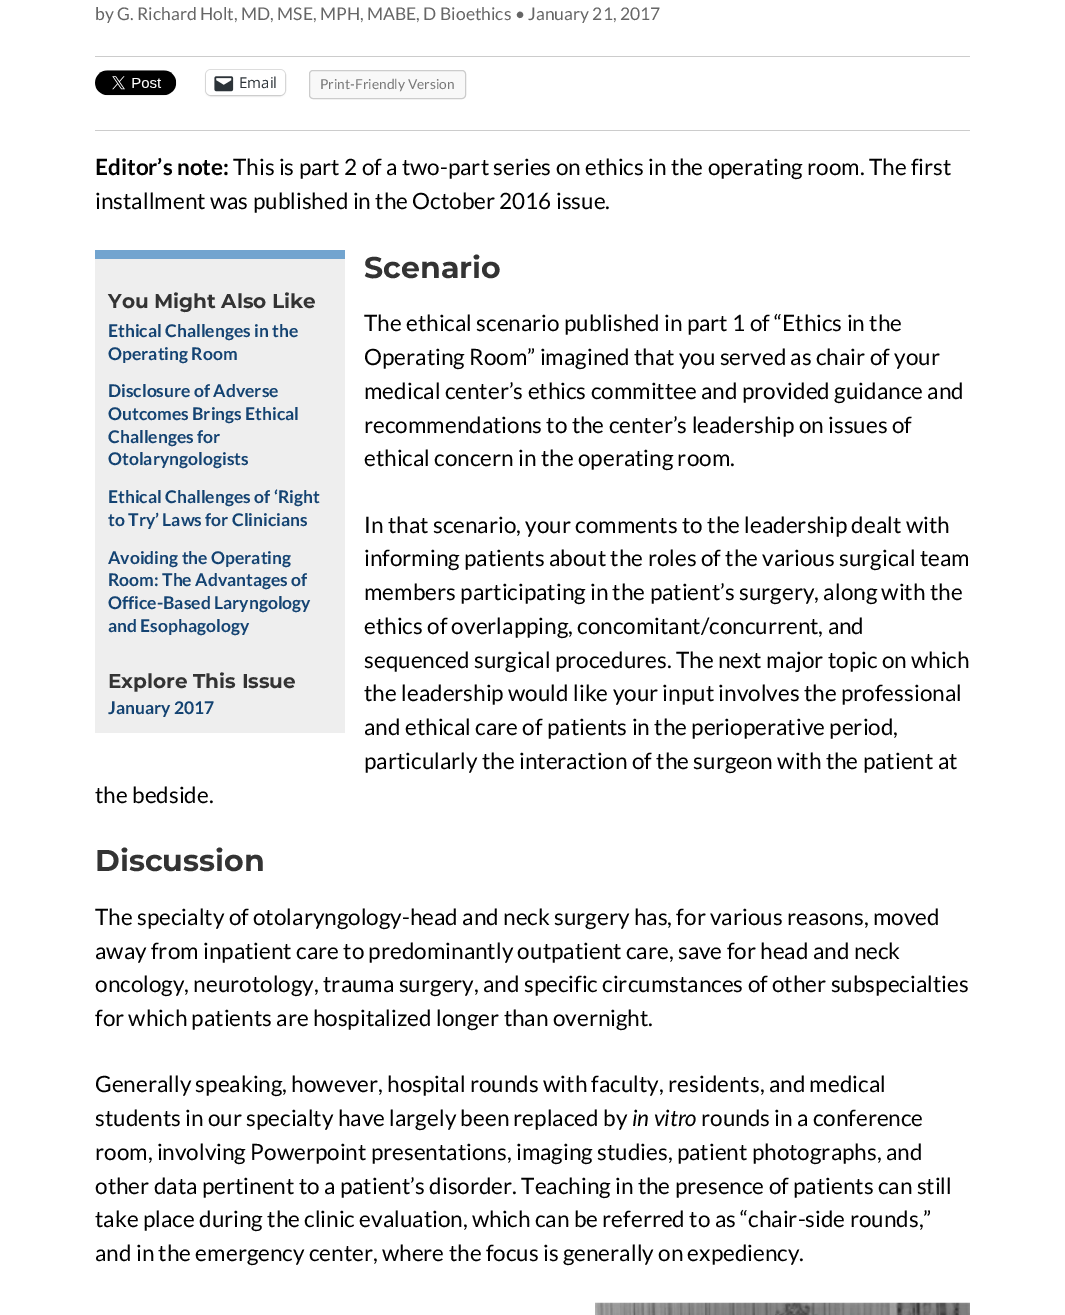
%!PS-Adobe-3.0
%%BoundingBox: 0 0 1065 1315
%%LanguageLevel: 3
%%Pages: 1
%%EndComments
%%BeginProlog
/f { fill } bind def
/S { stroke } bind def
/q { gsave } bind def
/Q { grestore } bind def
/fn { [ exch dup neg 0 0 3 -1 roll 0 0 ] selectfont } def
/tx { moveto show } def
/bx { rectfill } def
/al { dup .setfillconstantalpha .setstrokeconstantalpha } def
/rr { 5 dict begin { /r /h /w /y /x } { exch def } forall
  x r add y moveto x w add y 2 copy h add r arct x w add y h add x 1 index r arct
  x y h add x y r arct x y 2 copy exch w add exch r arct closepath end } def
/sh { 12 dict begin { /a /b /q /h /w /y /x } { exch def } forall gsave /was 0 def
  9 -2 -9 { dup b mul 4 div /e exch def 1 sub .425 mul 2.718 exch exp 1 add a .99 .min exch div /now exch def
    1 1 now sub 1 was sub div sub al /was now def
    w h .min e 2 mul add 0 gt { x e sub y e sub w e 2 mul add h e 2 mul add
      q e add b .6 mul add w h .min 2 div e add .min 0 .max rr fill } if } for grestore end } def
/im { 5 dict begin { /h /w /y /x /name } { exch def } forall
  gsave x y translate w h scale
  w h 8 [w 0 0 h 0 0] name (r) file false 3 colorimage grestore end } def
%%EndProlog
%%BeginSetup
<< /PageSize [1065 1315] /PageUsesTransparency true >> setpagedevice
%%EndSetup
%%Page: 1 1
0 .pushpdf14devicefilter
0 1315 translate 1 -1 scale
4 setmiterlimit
1 setgray
0 0 1065 1315 bx
/Lato-Regular 17.5 fn
0.4 setgray
(by G. Richard Holt, MD, MSE, MPH, MABE, D Bioethics • January 21, 2017) 95 20 tx
0.8 setgray
95 56 875 1 bx
95 130 875 1 bx
(image0.raw) 95 70 82 26 im
0.878 setgray
205.5 69.5 80 26 5.5 rr S
0 setgray
206 71 79 25 5 1 0.12 sh
1 setgray
206 70 79 25 5 rr f
(image1.raw) 214 76 20 16 im
/OpenSans-Regular 15 fn
0.173 0.2 0.22 setrgbcolor
(Email) 239 88 tx
0.973 setgray
309.5 70.5 156 28 3.5 rr q f Q
0.8 setgray
S
/Lato-Regular 13.75 fn
0.467 setgray
(Print-Friendly Version) 320 89 tx
/Lato-Bold 22.5 fn
0 setgray
(Editor’s note:) 95 175 tx
/Lato-Regular 22.5 fn
(This is part 2 of a two-part series on ethics in the operating room. The first) 233 175 tx
(installment was published in the October 2016 issue.) 95 209 tx
/Montserrat-Bold 30 fn
0.2 setgray
(Scenario) 364 278 tx
0.933 setgray
95 259 250 474 bx
0.447 0.643 0.812 setrgbcolor
95 250 250 9 bx
/Montserrat-Bold 20 fn
0.2 setgray
(You Might Also Like) 108 308 tx
/Lato-Bold 17.5 fn
0.078 0.263 0.447 setrgbcolor
(Ethical Challenges in the) 108 337 tx
(Operating Room) 108 360 tx
(Disclosure of Adverse) 108 397 tx
(Outcomes Brings Ethical) 108 420 tx
(Challenges for) 108 443 tx
(Otolaryngologists) 108 465 tx
(Ethical Challenges of ‘Right) 108 503 tx
(to Try’ Laws for Clinicians) 108 526 tx
(Avoiding the Operating) 108 564 tx
(Room: The Advantages of) 108 586 tx
(Office-Based Laryngology) 108 609 tx
(and Esophagology) 108 632 tx
/Montserrat-Bold 20 fn
0.2 setgray
(Explore This Issue) 108 688 tx
/Lato-Bold 17.5 fn
0.078 0.263 0.447 setrgbcolor
(January 2017) 108 714 tx
/Lato-Regular 22.5 fn
0 setgray
(The ethical scenario published in part 1 of “Ethics in the) 364 331 tx
(Operating Room” imagined that you served as chair of your) 364 365 tx
(medical center’s ethics committee and provided guidance and) 364 399 tx
(recommendations to the center’s leadership on issues of) 364 433 tx
(ethical concern in the operating room.) 364 466 tx
(In that scenario, your comments to the leadership dealt with) 364 533 tx
(informing patients about the roles of the various surgical team) 364 566 tx
(members participating in the patient’s surgery, along with the) 364 600 tx
(ethics of overlapping, concomitant/concurrent, and) 364 634 tx
(sequenced surgical procedures. The next major topic on which) 364 668 tx
(the leadership would like your input involves the professional) 364 701 tx
(and ethical care of patients in the perioperative period,) 364 735 tx
(particularly the interaction of the surgeon with the patient at) 364 769 tx
(the bedside.) 95 803 tx
/Montserrat-Bold 30 fn
0.2 setgray
(Discussion) 95 871 tx
/Lato-Regular 22.5 fn
0 setgray
(The specialty of otolaryngology-head and neck surgery has, for various reasons, moved) 95 925 tx
(away from inpatient care to predominantly outpatient care, save for head and neck) 95 959 tx
(oncology, neurotology, trauma surgery, and specific circumstances of other subspecialties) 95 992 tx
(for which patients are hospitalized longer than overnight.) 95 1026 tx
(Generally speaking, however, hospital rounds with faculty, residents, and medical) 95 1092 tx
(students in our specialty have largely been replaced by) 95 1126 tx
/Lato-Italic 22.5 fn
(in vitro) 632 1126 tx
/Lato-Regular 22.5 fn
(rounds in a conference) 701 1126 tx
(room, involving Powerpoint presentations, imaging studies, patient photographs, and) 95 1160 tx
(other data pertinent to a patient’s disorder. Teaching in the presence of patients can still) 95 1194 tx
(take place during the clinic evaluation, which can be referred to as “chair-side rounds,”) 95 1227 tx
(and in the emergency center, where the focus is generally on expediency.) 95 1261 tx
(image2.raw) 595 1302 375 13 im
.poppdf14devicefilter showpage
%%EOF
